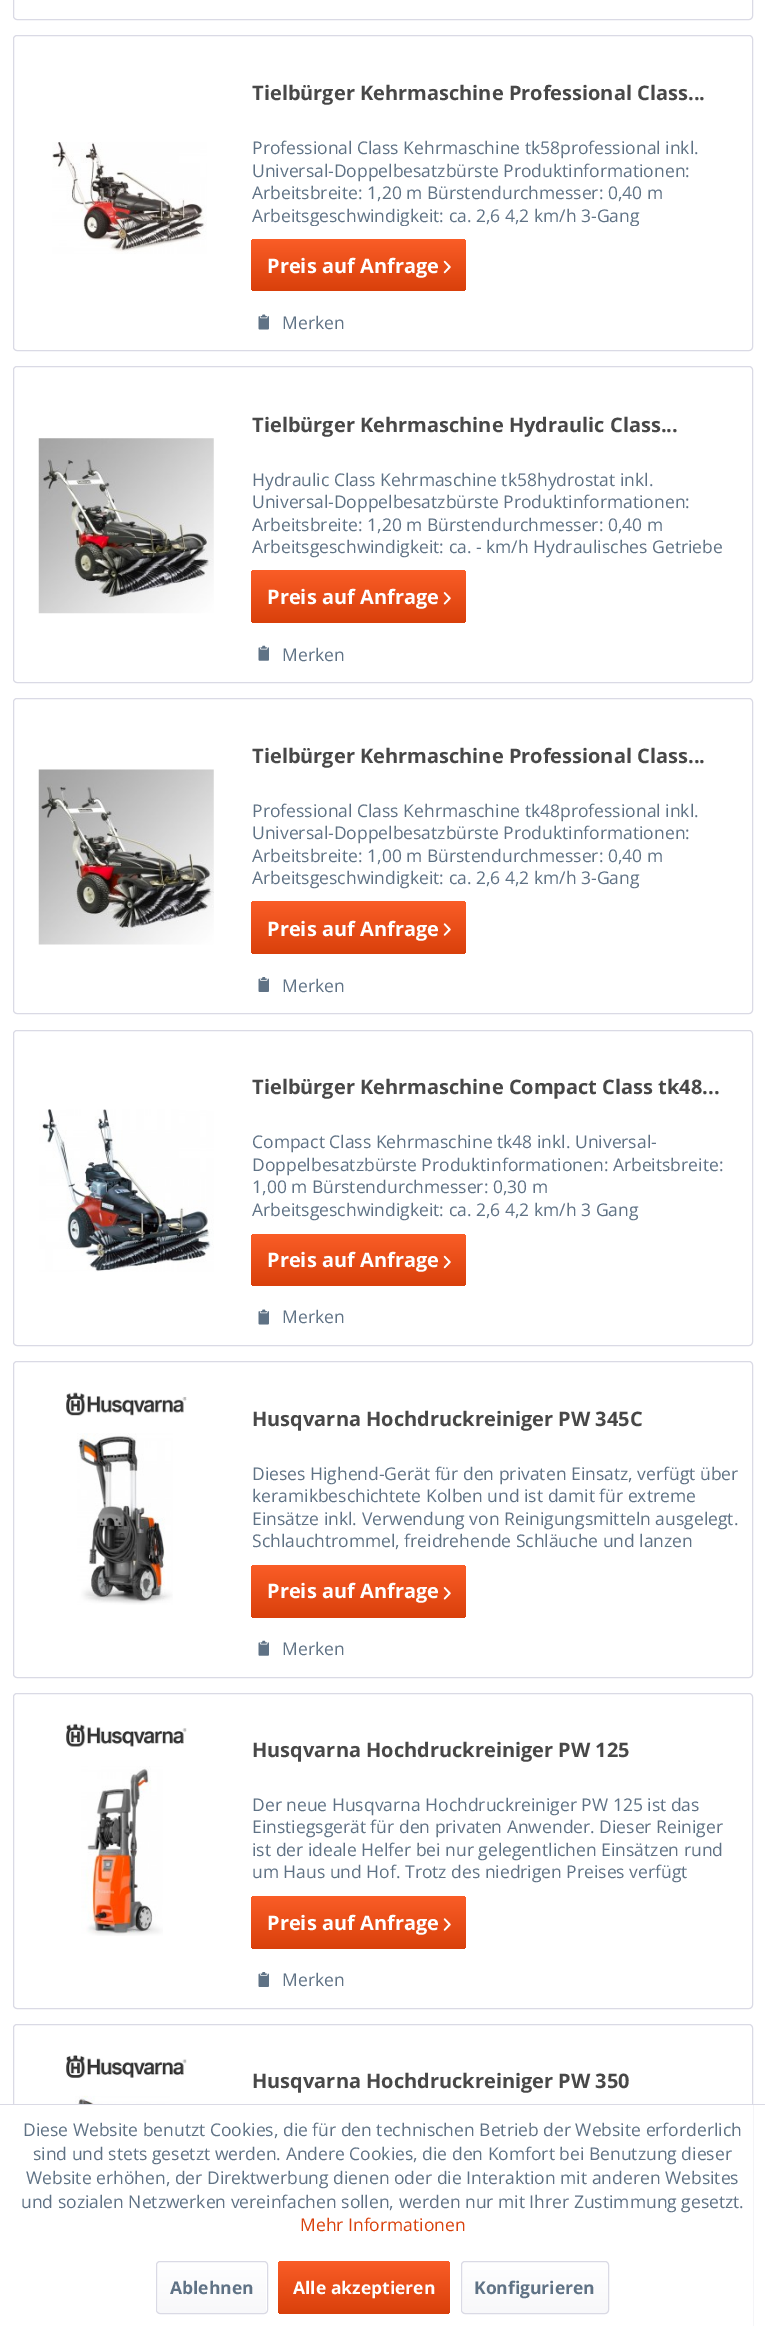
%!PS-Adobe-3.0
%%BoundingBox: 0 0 765 2326
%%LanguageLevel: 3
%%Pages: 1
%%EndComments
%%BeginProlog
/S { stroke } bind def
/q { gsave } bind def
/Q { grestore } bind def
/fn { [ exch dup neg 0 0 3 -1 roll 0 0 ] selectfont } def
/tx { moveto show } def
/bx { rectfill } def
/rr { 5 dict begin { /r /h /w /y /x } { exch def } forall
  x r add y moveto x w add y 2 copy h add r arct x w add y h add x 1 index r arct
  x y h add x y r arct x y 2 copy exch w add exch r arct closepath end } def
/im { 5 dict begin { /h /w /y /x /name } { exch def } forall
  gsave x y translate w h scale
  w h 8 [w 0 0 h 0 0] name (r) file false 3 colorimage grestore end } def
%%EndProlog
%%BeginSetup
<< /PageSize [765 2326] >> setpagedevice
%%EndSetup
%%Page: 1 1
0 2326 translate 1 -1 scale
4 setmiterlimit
1 setgray
0 0 765 2326 bx
0.855 0.855 0.898 setrgbcolor
13.5 -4.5 739 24 3.5 rr S
13.5 35.5 739 315 3.5 rr S
/OpenSans-Bold 20 fn
0.282 setgray
(Tielbürger Kehrmaschine Professional Class...) 252 100 tx
(image0.raw) 52 142 155 112 im
/OpenSans-Regular 17.5 fn
0.373 0.447 0.522 setrgbcolor
(Professional Class Kehrmaschine tk58professional inkl.) 252 154 tx
(Universal-Doppelbesatzbürste Produktinformationen:) 252 177 tx
(Arbeitsbreite: 1,20 m Bürstendurchmesser: 0,40 m) 252 199 tx
q
251 136 488 90 rectclip
(Arbeitsgeschwindigkeit: ca. 2,6 4,2 km/h 3-Gang) 252 222 tx
Q
q 251 239 215 52 4 rr clip newpath
<< /ShadingType 2 /ColorSpace /DeviceRGB /Coords [359 239 359 291] /Extend [true true] /Function << /FunctionType 2 /Domain [0 1] /C0 [0.98 0.365 0.153] /C1 [0.851 0.251 0.043] /N 1 >> >> shfill Q
/OpenSans-Bold 20 fn
1 setgray
(Preis auf Anfrage) 267 273 tx
(image1.raw) 443 260 8 14 im
(image2.raw) 258 314 11 16 im
/OpenSans-Regular 17.5 fn
0.373 0.447 0.522 setrgbcolor
(Merken) 282 329 tx
0.855 0.855 0.898 setrgbcolor
13.5 366.5 739 316 3.5 rr S
/OpenSans-Bold 20 fn
0.282 setgray
(Tielbürger Kehrmaschine Hydraulic Class...) 252 432 tx
(image3.raw) 38 438 176 176 im
/OpenSans-Regular 17.5 fn
0.373 0.447 0.522 setrgbcolor
(Hydraulic Class Kehrmaschine tk58hydrostat inkl.) 252 486 tx
(Universal-Doppelbesatzbürste Produktinformationen:) 252 508 tx
(Arbeitsbreite: 1,20 m Bürstendurchmesser: 0,40 m) 252 531 tx
(Arbeitsgeschwindigkeit: ca. - km/h Hydraulisches Getriebe) 252 553 tx
q 251 570 215 53 4 rr clip newpath
<< /ShadingType 2 /ColorSpace /DeviceRGB /Coords [359 570 359 623] /Extend [true true] /Function << /FunctionType 2 /Domain [0 1] /C0 [0.98 0.365 0.153] /C1 [0.851 0.251 0.043] /N 1 >> >> shfill Q
/OpenSans-Bold 20 fn
1 setgray
(Preis auf Anfrage) 267 604 tx
(image4.raw) 443 592 8 13 im
(image5.raw) 258 645 11 16 im
/OpenSans-Regular 17.5 fn
0.373 0.447 0.522 setrgbcolor
(Merken) 282 661 tx
0.855 0.855 0.898 setrgbcolor
13.5 698.5 739 315 3.5 rr S
/OpenSans-Bold 20 fn
0.282 setgray
(Tielbürger Kehrmaschine Professional Class...) 252 763 tx
(image6.raw) 38 769 176 176 im
/OpenSans-Regular 17.5 fn
0.373 0.447 0.522 setrgbcolor
(Professional Class Kehrmaschine tk48professional inkl.) 252 817 tx
(Universal-Doppelbesatzbürste Produktinformationen:) 252 839 tx
(Arbeitsbreite: 1,00 m Bürstendurchmesser: 0,40 m) 252 862 tx
(Arbeitsgeschwindigkeit: ca. 2,6 4,2 km/h 3-Gang) 252 884 tx
q 251 901 215 53 4 rr clip newpath
<< /ShadingType 2 /ColorSpace /DeviceRGB /Coords [359 901 359 954] /Extend [true true] /Function << /FunctionType 2 /Domain [0 1] /C0 [0.98 0.365 0.153] /C1 [0.851 0.251 0.043] /N 1 >> >> shfill Q
/OpenSans-Bold 20 fn
1 setgray
(Preis auf Anfrage) 267 936 tx
(image7.raw) 443 923 8 13 im
(image8.raw) 258 977 11 15 im
/OpenSans-Regular 17.5 fn
0.373 0.447 0.522 setrgbcolor
(Merken) 282 992 tx
0.855 0.855 0.898 setrgbcolor
13.5 1030.5 739 315 3.5 rr S
/OpenSans-Bold 20 fn
0.282 setgray
(Tielbürger Kehrmaschine Compact Class tk48...) 252 1094 tx
(image9.raw) 39 1109 175 163 im
/OpenSans-Regular 17.5 fn
0.373 0.447 0.522 setrgbcolor
(Compact Class Kehrmaschine tk48 inkl. Universal-) 252 1148 tx
(Doppelbesatzbürste Produktinformationen: Arbeitsbreite:) 252 1171 tx
(1,00 m Bürstendurchmesser: 0,30 m) 252 1193 tx
(Arbeitsgeschwindigkeit: ca. 2,6 4,2 km/h 3 Gang) 252 1216 tx
q 251 1234 215 52 4 rr clip newpath
<< /ShadingType 2 /ColorSpace /DeviceRGB /Coords [359 1234 359 1286] /Extend [true true] /Function << /FunctionType 2 /Domain [0 1] /C0 [0.98 0.365 0.153] /C1 [0.851 0.251 0.043] /N 1 >> >> shfill Q
/OpenSans-Bold 20 fn
1 setgray
(Preis auf Anfrage) 267 1267 tx
(image1.raw) 443 1255 8 14 im
(image2.raw) 258 1309 11 16 im
/OpenSans-Regular 17.5 fn
0.373 0.447 0.522 setrgbcolor
(Merken) 282 1323 tx
0.855 0.855 0.898 setrgbcolor
13.5 1361.5 739 316 3.5 rr S
(image10.raw) 66 1392 121 24 im
(image11.raw) 77 1433 96 172 im
/OpenSans-Bold 20 fn
0.282 setgray
(Husqvarna Hochdruckreiniger PW 345C) 252 1426 tx
/OpenSans-Regular 17.5 fn
0.373 0.447 0.522 setrgbcolor
(Dieses Highend-Gerät für den privaten Einsatz, verfügt über) 252 1480 tx
(keramikbeschichtete Kolben und ist damit für extreme) 252 1502 tx
(Einsätze inkl. Verwendung von Reinigungsmitteln ausgelegt.) 252 1525 tx
(Schlauchtrommel, freidrehende Schläuche und lanzen) 252 1547 tx
q 251 1565 215 53 4 rr clip newpath
<< /ShadingType 2 /ColorSpace /DeviceRGB /Coords [359 1565 359 1618] /Extend [true true] /Function << /FunctionType 2 /Domain [0 1] /C0 [0.98 0.365 0.153] /C1 [0.851 0.251 0.043] /N 1 >> >> shfill Q
/OpenSans-Bold 20 fn
1 setgray
(Preis auf Anfrage) 267 1598 tx
(image4.raw) 443 1587 8 13 im
(image5.raw) 258 1640 11 16 im
/OpenSans-Regular 17.5 fn
0.373 0.447 0.522 setrgbcolor
(Merken) 282 1655 tx
0.855 0.855 0.898 setrgbcolor
13.5 1693.5 739 315 3.5 rr S
(image12.raw) 66 1723 121 24 im
(image13.raw) 81 1766 82 170 im
/OpenSans-Bold 20 fn
0.282 setgray
(Husqvarna Hochdruckreiniger PW 125) 252 1757 tx
/OpenSans-Regular 17.5 fn
0.373 0.447 0.522 setrgbcolor
(Der neue Husqvarna Hochdruckreiniger PW 125 ist das) 252 1811 tx
(Einstiegsgerät für den privaten Anwender. Dieser Reiniger) 252 1833 tx
(ist der ideale Helfer bei nur gelegentlichen Einsätzen rund) 252 1856 tx
(um Haus und Hof. Trotz des niedrigen Preises verfügt) 252 1878 tx
q 251 1896 215 53 4 rr clip newpath
<< /ShadingType 2 /ColorSpace /DeviceRGB /Coords [359 1896 359 1949] /Extend [true true] /Function << /FunctionType 2 /Domain [0 1] /C0 [0.98 0.365 0.153] /C1 [0.851 0.251 0.043] /N 1 >> >> shfill Q
/OpenSans-Bold 20 fn
1 setgray
(Preis auf Anfrage) 267 1930 tx
(image7.raw) 443 1918 8 13 im
(image8.raw) 258 1972 11 15 im
/OpenSans-Regular 17.5 fn
0.373 0.447 0.522 setrgbcolor
(Merken) 282 1986 tx
0.855 0.855 0.898 setrgbcolor
13.5 2024.5 739 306 3.5 rr S
(image14.raw) 66 2055 121 23 im
(image15.raw) 75 2095 95 9 im
/OpenSans-Bold 20 fn
0.282 setgray
(Husqvarna Hochdruckreiniger PW 350) 252 2088 tx
1 setgray
13 2105 740 221 bx
0.855 0.855 0.898 setrgbcolor
0 2104 765 1 bx
/OpenSans-Regular 17.5 fn
0.373 0.447 0.522 setrgbcolor
(Diese Website benutzt Cookies, die für den technischen Betrieb der Website erforderlich) 23 2136 tx
(sind und stets gesetzt werden. Andere Cookies, die den Komfort bei Benutzung dieser) 33 2160 tx
(Website erhöhen, der Direktwerbung dienen oder die Interaktion mit anderen Websites) 26 2184 tx
(und sozialen Netzwerken vereinfachen sollen, werden nur mit Ihrer Zustimmung gesetzt.) 21 2208 tx
0.851 0.251 0.043 setrgbcolor
(Mehr Informationen) 300 2231 tx
q 158 2263 108 50 2.5 rr clip newpath
<< /ShadingType 2 /ColorSpace /DeviceRGB /Coords [212 2263 212 2313] /Extend [true true] /Function << /FunctionType 2 /Domain [0 1] /C0 [1 1 1] /C1 [0.973 0.973 0.98] /N 1 >> >> shfill Q
0.855 0.855 0.898 setrgbcolor
156.5 2261.5 111 52 3.5 rr S
/OpenSans-Bold 17.5 fn
0.373 0.447 0.522 setrgbcolor
(Ablehnen) 170 2294 tx
q 278 2261 172 53 4 rr clip newpath
<< /ShadingType 2 /ColorSpace /DeviceRGB /Coords [364 2261 364 2314] /Extend [true true] /Function << /FunctionType 2 /Domain [0 1] /C0 [0.98 0.365 0.153] /C1 [0.851 0.251 0.043] /N 1 >> >> shfill Q
1 setgray
(Alle akzeptieren) 293 2294 tx
q 463 2263 145 50 2.5 rr clip newpath
<< /ShadingType 2 /ColorSpace /DeviceRGB /Coords [535 2263 535 2313] /Extend [true true] /Function << /FunctionType 2 /Domain [0 1] /C0 [1 1 1] /C1 [0.973 0.973 0.98] /N 1 >> >> shfill Q
0.855 0.855 0.898 setrgbcolor
461.5 2261.5 147 52 3.5 rr S
0.373 0.447 0.522 setrgbcolor
(Konfigurieren) 474 2294 tx
showpage
%%EOF
